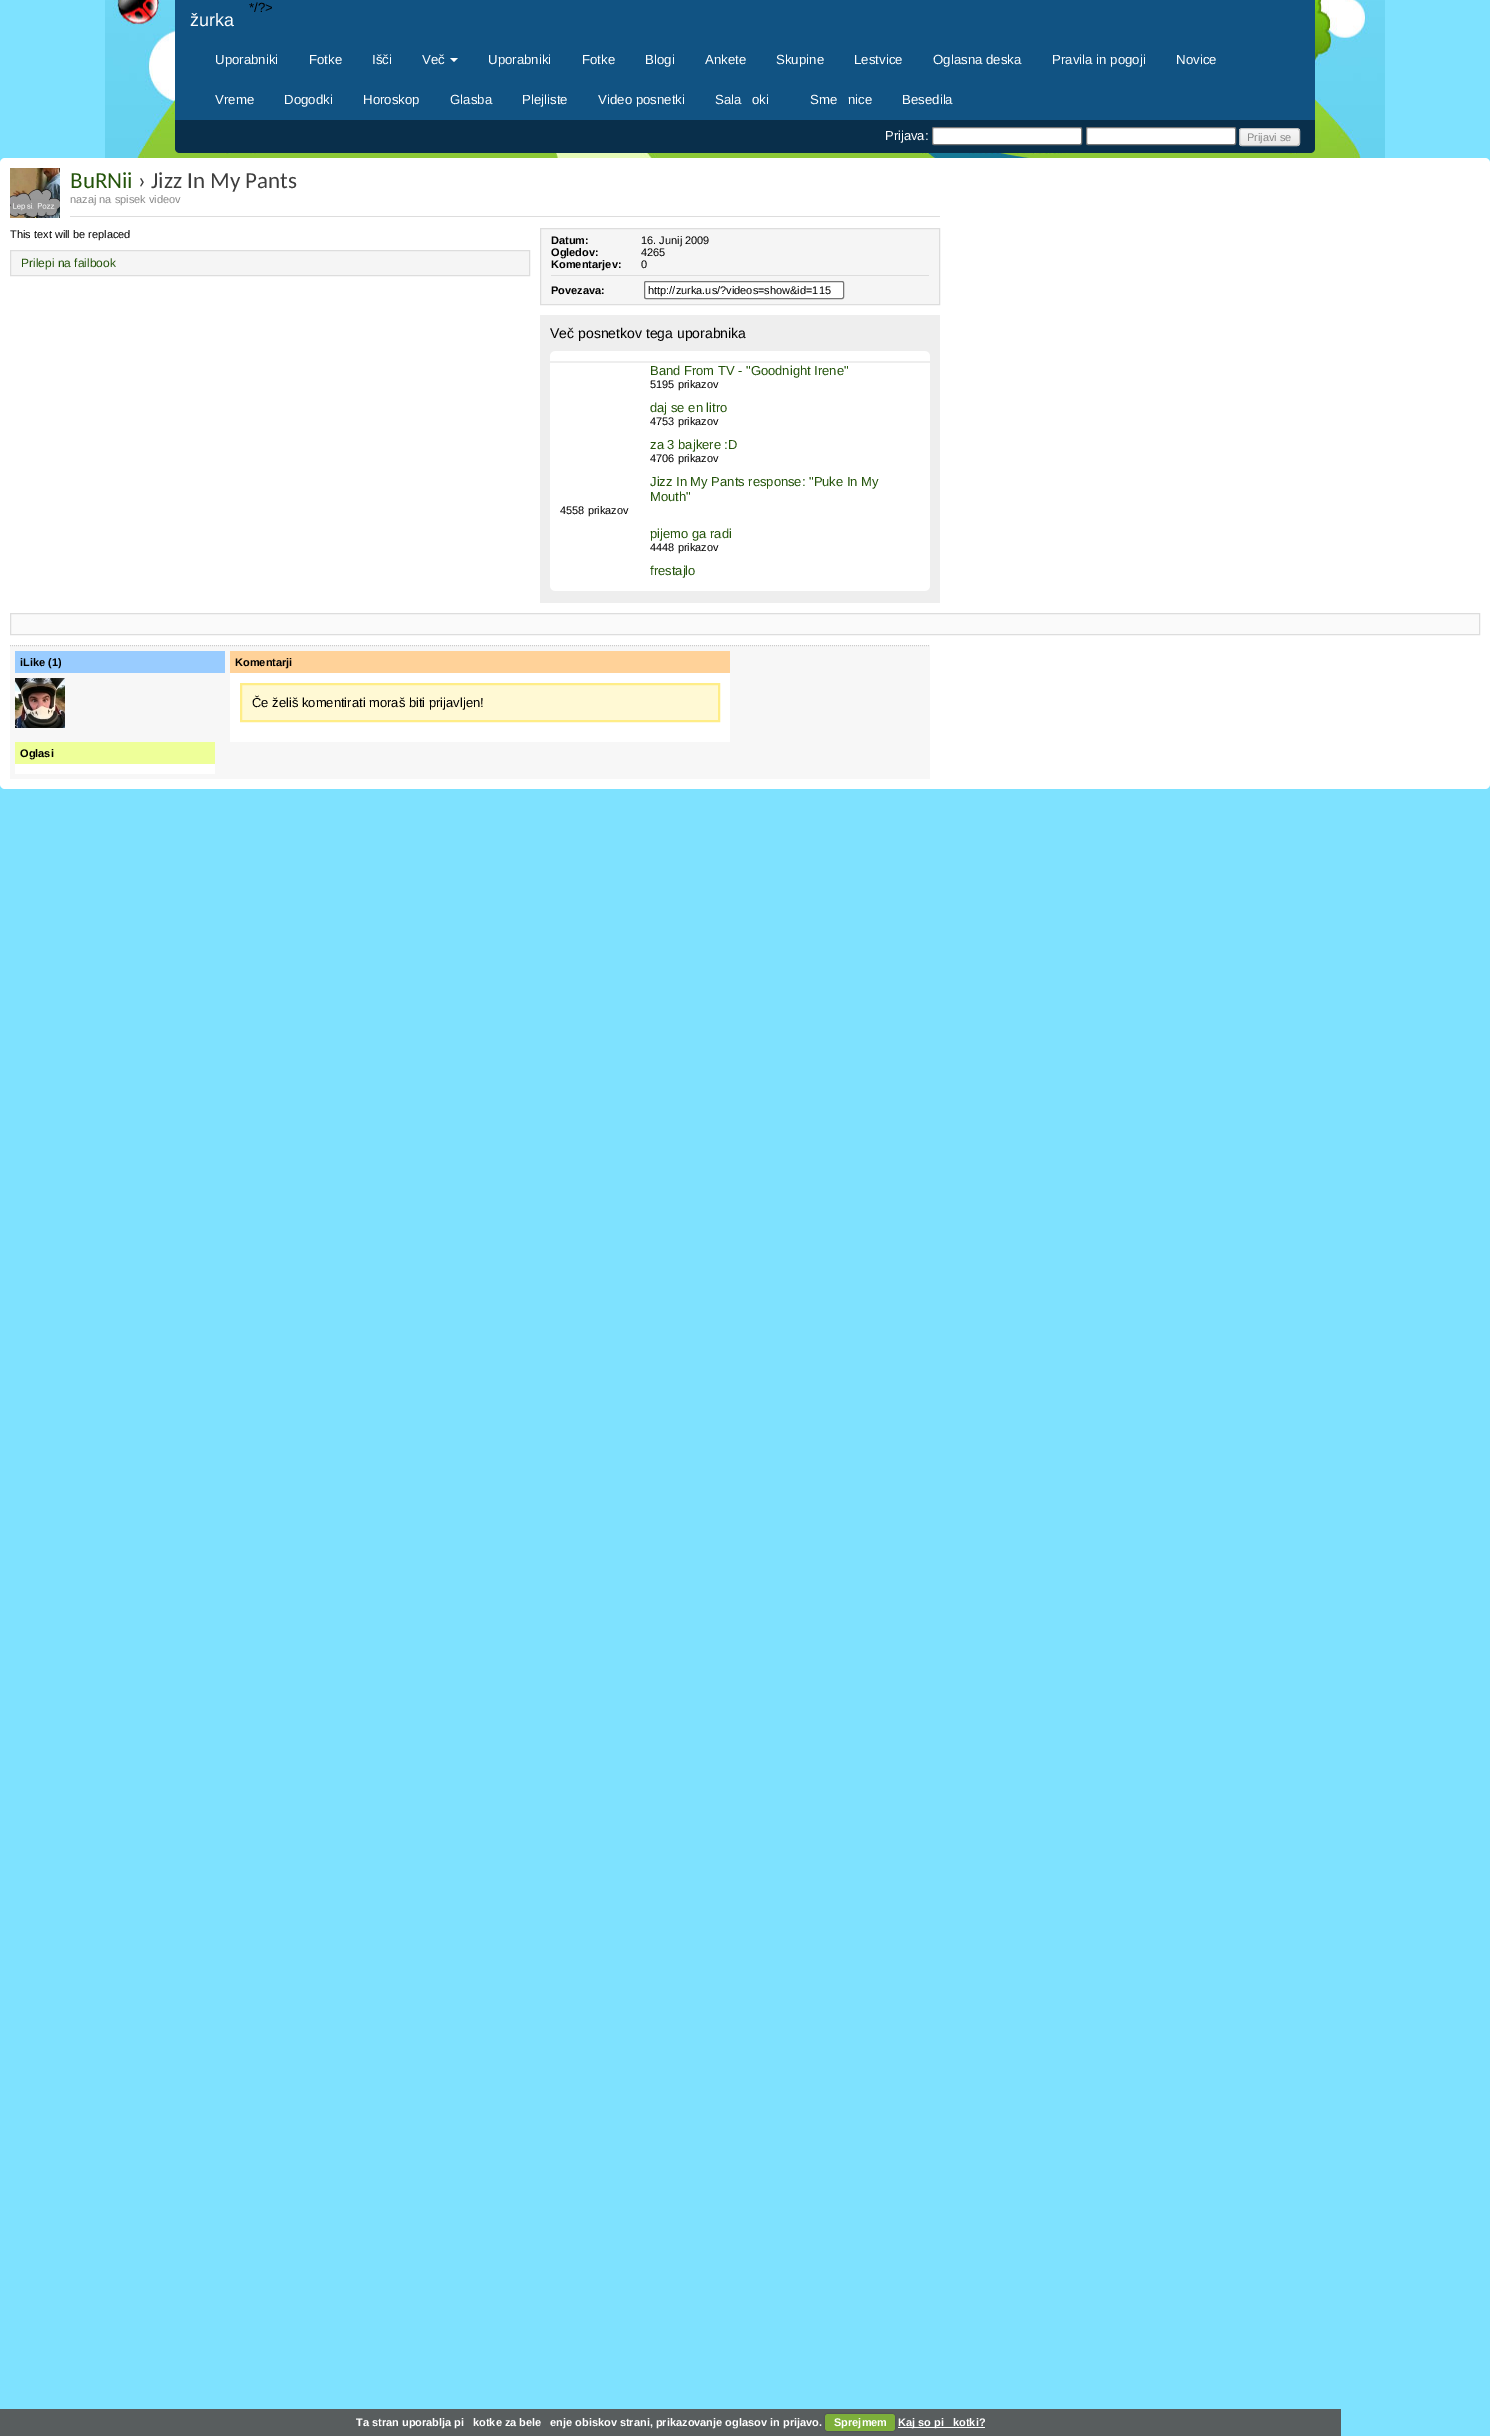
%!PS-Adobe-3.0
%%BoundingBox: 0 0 1490 2436
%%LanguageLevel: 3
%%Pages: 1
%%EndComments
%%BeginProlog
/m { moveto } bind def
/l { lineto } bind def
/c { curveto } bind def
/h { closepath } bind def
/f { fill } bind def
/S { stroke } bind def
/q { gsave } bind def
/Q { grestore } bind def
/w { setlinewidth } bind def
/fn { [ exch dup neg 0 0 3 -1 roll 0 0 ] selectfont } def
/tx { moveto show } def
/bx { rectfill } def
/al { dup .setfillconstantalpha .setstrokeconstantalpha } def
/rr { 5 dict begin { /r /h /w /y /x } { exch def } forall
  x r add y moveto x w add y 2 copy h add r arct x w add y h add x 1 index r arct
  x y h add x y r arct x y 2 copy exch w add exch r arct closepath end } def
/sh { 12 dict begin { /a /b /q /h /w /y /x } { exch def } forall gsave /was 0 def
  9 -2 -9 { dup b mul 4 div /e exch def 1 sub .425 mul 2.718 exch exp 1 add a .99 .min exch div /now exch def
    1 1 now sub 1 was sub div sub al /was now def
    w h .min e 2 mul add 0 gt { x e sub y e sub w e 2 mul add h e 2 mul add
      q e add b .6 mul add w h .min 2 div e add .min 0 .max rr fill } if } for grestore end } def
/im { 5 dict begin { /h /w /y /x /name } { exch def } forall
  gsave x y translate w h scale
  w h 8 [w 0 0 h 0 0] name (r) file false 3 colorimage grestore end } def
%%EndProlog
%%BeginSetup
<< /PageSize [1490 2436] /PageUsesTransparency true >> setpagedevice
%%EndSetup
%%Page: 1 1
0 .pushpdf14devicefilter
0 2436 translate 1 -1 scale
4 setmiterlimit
0.494 0.886 1 setrgbcolor
0 0 1490 2436 bx
0.345 0.365 0.369 setrgbcolor
0 2409 1341 27 bx
(image0.raw) 105 0 1280 158 im
0.067 0.325 0.514 setrgbcolor
175 0 1140 120 bx
/LiberationSans-Regular 18 fn
1 setgray
(žurka) 190 26 tx
/LiberationSans-Regular 13.25 fn
0 setgray
(*/?>) 249 12 tx
1 setgray
(Uporabniki) 215 64 tx
(Fotke) 309 64 tx
(Išči) 372 64 tx
(Več) 422 64 tx
450 58 m 458 58 l 454 62 l h f
(Uporabniki) 488 64 tx
(Fotke) 582 64 tx
(Blogi) 645 64 tx
(Ankete) 705 64 tx
(Skupine) 776 64 tx
(Lestvice) 854 64 tx
(Oglasna deska) 933 64 tx
(Pravila in pogoji) 1052 64 tx
(Novice) 1176 64 tx
(Vreme) 215 104 tx
(Dogodki) 284 104 tx
(Horoskop) 363 104 tx
(Glasba) 450 104 tx
(Plejliste) 522 104 tx
(Video posnetki) 598 104 tx
(Sala) 715 104 tx
(oki) 752 104 tx
(Sme) 810 104 tx
(nice) 848 104 tx
(Besedila) 902 104 tx
0.035 0.184 0.294 setrgbcolor
175 120 m 1315 120 l 1315 148 l 1315 151 1313 153 1310 153 c 180 153 l 177 153 175 151 175 148 c h f
/LiberationSans-Regular 13 fn
1 setgray
(Prijava:) 885 140 tx
932.5 127.5 149 17 1.5 rr q f Q
0.463 setgray
S
1 setgray
1086.5 127.5 149 17 1.5 rr q f Q
0.463 setgray
S
(image1.raw) 1239 129 61 17 im
0.733 setgray
1239.5 128.5 60 17 2.5 rr S
/LiberationSans-Regular 11 fn
0.533 setgray
(Prijavi se) 1247 141 tx
1 setgray
0 158 1490 631 5 rr f
(image2.raw) 10 168 50 50 im
0.867 setgray
70 216 870 1 bx
/Carlito-Regular 23 fn
0.141 0.329 0.043 setrgbcolor
(BuRNii) 70 188 tx
0.243 setgray
(› Jizz In My Pants) 138 188 tx
/LiberationSans-Regular 11 fn
0.533 setgray
(nazaj na spisek videov) 70 203 tx
0 setgray
(This text will be replaced) 10 238 tx
0.961 setgray
10.5 250.5 m 529.5 250.5 l 529.5 275.5 l 10.5 275.5 l h q f Q
0.867 setgray
S
/LiberationSans-Regular 12 fn
0.141 0.329 0.043 setrgbcolor
(Prilepi na failbook) 21 267 tx
0.961 setgray
540.5 228.5 m 939.5 228.5 l 939.5 304.5 l 540.5 304.5 l h q f Q
0.867 setgray
S
/LiberationSans-Bold 11 fn
0 setgray
(Datum:) 551 244 tx
/LiberationSans-Regular 11 fn
(16. Junij 2009) 641 244 tx
/LiberationSans-Bold 11 fn
(Ogledov:) 551 256 tx
/LiberationSans-Regular 11 fn
(4265) 641 256 tx
/LiberationSans-Bold 11 fn
(Komentarjev:) 551 268 tx
/LiberationSans-Regular 11 fn
(0) 641 268 tx
0.867 setgray
551 275 378 1 bx
/LiberationSans-Bold 11 fn
0 setgray
(Povezava:) 551 294 tx
1 setgray
644.5 281.5 199 17 1.5 rr q f Q
0.463 setgray
S
/LiberationSans-Regular 11 fn
0 setgray
(http://zurka.us/?videos=show&id=115) 648 294 tx
0.933 setgray
540 315 400 288 bx
/LiberationSans-Regular 14 fn
0 setgray
(Več posnetkov tega uporabnika) 550 338 tx
(image3.raw) 550 351 10 10 im
1 setgray
560 351 360 10 bx
(image4.raw) 920 351 10 10 im
550 363 380 218 bx
/LiberationSans-Regular 13 fn
0.141 0.329 0.043 setrgbcolor
(Band From TV - "Goodnight Irene") 650 375 tx
/LiberationSans-Regular 11 fn
0 setgray
(5195 prikazov) 650 388 tx
/LiberationSans-Regular 13 fn
0.141 0.329 0.043 setrgbcolor
(daj se en litro) 650 412 tx
/LiberationSans-Regular 11 fn
0 setgray
(4753 prikazov) 650 425 tx
/LiberationSans-Regular 13 fn
0.141 0.329 0.043 setrgbcolor
(za 3 bajkere :D) 650 449 tx
/LiberationSans-Regular 11 fn
0 setgray
(4706 prikazov) 650 462 tx
/LiberationSans-Regular 13 fn
0.141 0.329 0.043 setrgbcolor
(Jizz In My Pants response: "Puke In My) 650 486 tx
(Mouth") 650 501 tx
/LiberationSans-Regular 11 fn
0 setgray
(4558 prikazov) 560 514 tx
/LiberationSans-Regular 13 fn
0.141 0.329 0.043 setrgbcolor
(pijemo ga radi) 650 538 tx
/LiberationSans-Regular 11 fn
0 setgray
(4448 prikazov) 650 551 tx
/LiberationSans-Regular 13 fn
0.141 0.329 0.043 setrgbcolor
(frestajlo) 650 575 tx
(image5.raw) 550 581 10 10 im
1 setgray
560 581 360 10 bx
(image6.raw) 920 581 10 10 im
0.98 setgray
10.5 613.5 m 1479.5 613.5 l 1479.5 634.5 l 10.5 634.5 l h q f Q
0.867 setgray
S
0.969 setgray
10 645 920 134 bx
0.8 setgray
[1 1] 0 setdash
10 645.5 m 930 645.5 l S
0.6 0.8 1 setrgbcolor
15 651 210 22 bx
/LiberationSans-Bold 11 fn
0 setgray
(iLike \(1\)) 20 666 tx
(image7.raw) 15 678 50 50 im
1 0.824 0.6 setrgbcolor
230 651 500 22 bx
0 setgray
(Komentarji) 235 666 tx
1 setgray
230 673 500 69 bx
1 0.976 0.831 setrgbcolor
241 684 m 719 684 l 719 721 l 241 721 l h q f Q
1 0.929 0.529 setrgbcolor
2 w
[] 0 setdash
S
/LiberationSans-Regular 13 fn
0 setgray
(Če želiš komentirati moraš biti prijavljen!) 252 707 tx
0.933 1 0.6 setrgbcolor
15 742 200 22 bx
/LiberationSans-Bold 11 fn
0 setgray
(Oglasi) 20 757 tx
1 setgray
15 764 200 10 bx
(Ta stran uporablja pi) 356 2426 tx
(kotke za bele) 473 2426 tx
(enje obiskov strani, prikazovanje oglasov in prijavo.) 550 2426 tx
0 setgray
825 2414 70 17 3 1 0.25 sh
0.49 0.686 0.231 setrgbcolor
825 2414 70 17 3 rr f
1 setgray
(Sprejmem) 834 2426 tx
898 2427 87 1 bx
(Kaj so pi) 898 2426 tx
(kotki?) 953 2426 tx
.poppdf14devicefilter showpage
%%EOF
